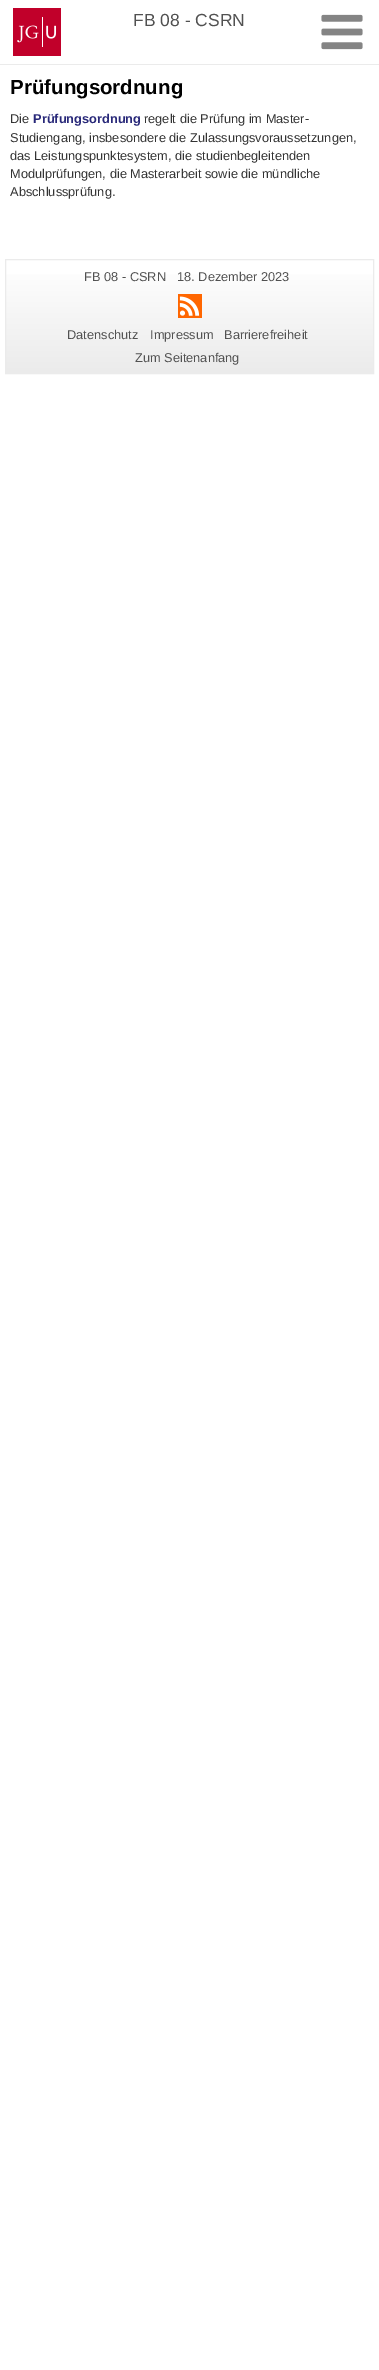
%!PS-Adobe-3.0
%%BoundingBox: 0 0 379 2370
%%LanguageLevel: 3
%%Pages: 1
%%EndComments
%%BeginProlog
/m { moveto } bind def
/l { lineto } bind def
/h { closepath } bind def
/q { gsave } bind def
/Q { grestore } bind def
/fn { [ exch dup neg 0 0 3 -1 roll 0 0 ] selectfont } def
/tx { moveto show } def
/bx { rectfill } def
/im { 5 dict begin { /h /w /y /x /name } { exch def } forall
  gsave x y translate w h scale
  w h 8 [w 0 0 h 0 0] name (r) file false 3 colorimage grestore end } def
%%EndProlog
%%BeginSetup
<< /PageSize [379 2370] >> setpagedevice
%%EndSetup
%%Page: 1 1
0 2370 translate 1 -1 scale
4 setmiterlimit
1 setgray
0 0 379 2370 bx
0.922 setgray
0 64 379 1 bx
(image0.raw) 13 8 48 48 im
/LiberationSans-Regular 17.5 fn
0.318 setgray
(FB 08 - CSRN) 133 26 tx
(image1.raw) 321 14 42 36 im
/LiberationSans-Bold 20.5 fn
0 setgray
(Prüfungsordnung) 10 94 tx
/LiberationSans-Regular 12.8 fn
0.2 setgray
(Die) 10 123 tx
/LiberationSans-Bold 12.8 fn
0.157 0.157 0.475 setrgbcolor
(Prüfungsordnung) 33 123 tx
/LiberationSans-Regular 12.8 fn
0.2 setgray
(regelt die Prüfung im Master-) 144 123 tx
(Studiengang, insbesondere die Zulassungsvoraussetzungen,) 10 142 tx
(das Leistungspunktesystem, die studienbegleitenden) 10 160 tx
(Modulprüfungen, die Masterarbeit sowie die mündliche) 10 178 tx
(Abschlussprüfung.) 10 196 tx
q 6 274 m 373 274 l 373 373 l 6 373 l h clip newpath
<< /ShadingType 2 /ColorSpace /DeviceRGB /Coords [190 373 190 260] /Extend [true true] /Function << /FunctionType 2 /Domain [0 1] /C0 [0.922 0.922 0.922] /C1 [1 1 1] /N 1 >> >> shfill Q
0.922 setgray
5.5 259.5 368 114 rectstroke
0.318 setgray
(FB 08 - CSRN) 84 281 tx
(18. Dezember 2023) 177 281 tx
(image2.raw) 178 294 24 24 im
(Datenschutz) 67 339 tx
(Impressum) 150 339 tx
(Barrierefreiheit) 224 339 tx
(Zum Seitenanfang) 135 362 tx
showpage
%%EOF
